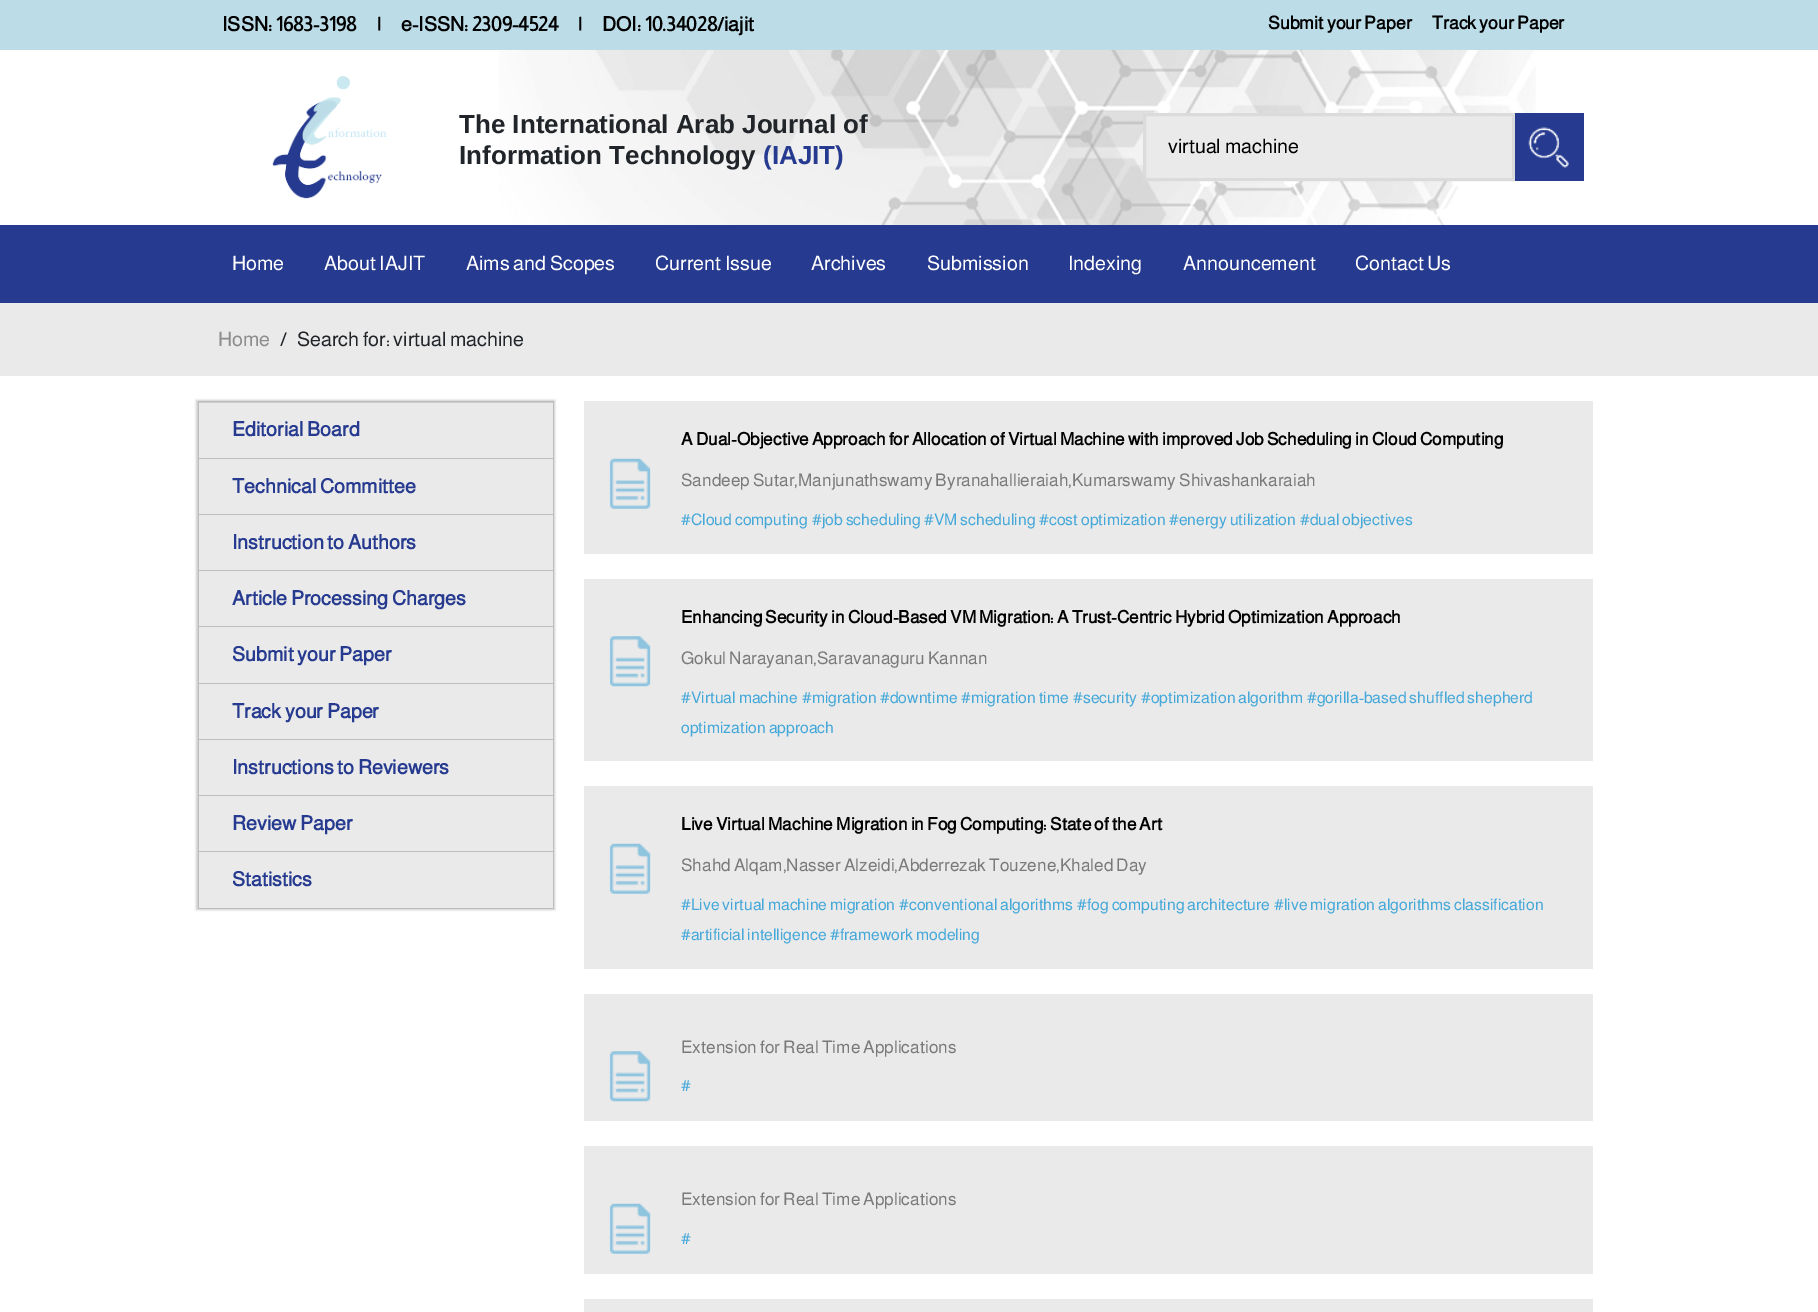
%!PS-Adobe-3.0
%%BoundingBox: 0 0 1818 1312
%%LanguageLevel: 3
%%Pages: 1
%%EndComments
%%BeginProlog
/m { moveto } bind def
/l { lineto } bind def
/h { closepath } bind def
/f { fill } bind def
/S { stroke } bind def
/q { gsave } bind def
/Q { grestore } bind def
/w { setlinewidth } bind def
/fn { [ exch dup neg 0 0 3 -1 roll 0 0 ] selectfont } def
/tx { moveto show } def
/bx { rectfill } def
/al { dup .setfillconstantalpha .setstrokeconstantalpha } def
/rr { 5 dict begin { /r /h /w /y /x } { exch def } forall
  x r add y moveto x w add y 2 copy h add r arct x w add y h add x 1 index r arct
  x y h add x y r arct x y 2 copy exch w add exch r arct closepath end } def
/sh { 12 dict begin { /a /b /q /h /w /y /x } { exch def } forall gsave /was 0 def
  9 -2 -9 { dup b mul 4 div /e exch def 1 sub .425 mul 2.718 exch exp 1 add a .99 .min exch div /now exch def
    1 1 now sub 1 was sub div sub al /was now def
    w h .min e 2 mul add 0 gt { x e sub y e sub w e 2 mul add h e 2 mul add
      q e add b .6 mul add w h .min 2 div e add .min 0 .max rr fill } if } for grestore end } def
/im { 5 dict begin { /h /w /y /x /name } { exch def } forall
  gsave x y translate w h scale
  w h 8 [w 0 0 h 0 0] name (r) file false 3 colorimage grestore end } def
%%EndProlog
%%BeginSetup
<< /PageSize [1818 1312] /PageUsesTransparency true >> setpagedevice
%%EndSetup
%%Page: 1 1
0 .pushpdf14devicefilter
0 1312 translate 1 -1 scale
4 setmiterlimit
1 setgray
0 0 1818 1312 bx
(image0.raw) 499 50 1037 175 im
0.737 0.863 0.91 setrgbcolor
0 0 1818 50 bx
/Almarai-Bold 20 fn
0 setgray
(ISSN: 1683-3198) 222 31 tx
(|) 377 31 tx
(e-ISSN: 2309-4524) 401 31 tx
(|) 578 31 tx
(DOI: 10.34028/iajit) 602 31 tx
/Almarai-Bold 18 fn
(Submit your Paper) 1268 29 tx
(Track your Paper) 1432 29 tx
(image1.raw) 272 76 115 123 im
/LiberationSans-Bold 26 fn
0.129 0.145 0.161 setrgbcolor
(The International Arab Journal of) 459 133 tx
(Information Technology) 459 164 tx
0.149 0.227 0.561 setrgbcolor
(\(IAJIT\)) 763 164 tx
0.918 setgray
1144.5 114.5 m 1513.5 114.5 l 1513.5 179.5 l 1144.5 179.5 l h q f Q
0.859 setgray
3 w
S
/Almarai-Regular 20 fn
0 setgray
(virtual machine) 1168 153 tx
0.149 0.227 0.561 setrgbcolor
1515 113 69 68 bx
(image2.raw) 1528 127 41 41 im
0 225 1818 78 bx
1 setgray
(Home) 232 270 tx
(About IAJIT) 324 270 tx
(Aims and Scopes) 466 270 tx
(Current Issue) 655 270 tx
(Archives) 811 270 tx
(Submission) 927 270 tx
(Indexing) 1068 270 tx
(Announcement) 1183 270 tx
(Contact Us) 1355 270 tx
0.918 setgray
0 303 1818 73 bx
0.553 setgray
(Home) 218 346 tx
0.129 0.145 0.161 setrgbcolor
(/) 280 346 tx
(Search for: virtual machine) 297 346 tx
0.8 setgray
196 400 359 510 0 1 1 sh
0.741 setgray
198 401 356 1 bx
553 401 1 508 bx
198 401 1 508 bx
0.918 setgray
199 403 354 55 bx
0.741 setgray
199 458 354 1 bx
/Almarai-Bold 20 fn
0.149 0.227 0.561 setrgbcolor
(Editorial Board) 232 436 tx
0.918 setgray
199 459 354 55 bx
0.741 setgray
199 514 354 1 bx
0.149 0.227 0.561 setrgbcolor
(Technical Committee) 232 493 tx
0.918 setgray
199 515 354 55 bx
0.741 setgray
199 570 354 1 bx
0.149 0.227 0.561 setrgbcolor
(Instruction to Authors) 232 549 tx
0.918 setgray
199 571 354 112 bx
0.741 setgray
199 626 354 1 bx
0.149 0.227 0.561 setrgbcolor
(Article Processing Charges) 232 605 tx
0.741 setgray
199 683 354 1 bx
0.149 0.227 0.561 setrgbcolor
(Submit your Paper) 232 661 tx
0.918 setgray
199 684 354 55 bx
0.741 setgray
199 739 354 1 bx
0.149 0.227 0.561 setrgbcolor
(Track your Paper) 232 718 tx
0.918 setgray
199 740 354 55 bx
0.741 setgray
199 795 354 1 bx
0.149 0.227 0.561 setrgbcolor
(Instructions to Reviewers) 232 774 tx
0.918 setgray
199 796 354 112 bx
0.741 setgray
199 851 354 1 bx
0.149 0.227 0.561 setrgbcolor
(Review Paper) 232 830 tx
0.741 setgray
199 908 354 1 bx
0.149 0.227 0.561 setrgbcolor
(Statistics) 232 886 tx
0.918 setgray
584 401 1009 153 bx
(image3.raw) 609 458 42 51 im
/Almarai-Bold 17.5 fn
0 setgray
(A Dual-Objective Approach for Allocation of Virtual Machine with improved Job Scheduling in Cloud Computing) 681 445 tx
/Almarai-Regular 17.5 fn
0.478 setgray
(Sandeep Sutar,Manjunathswamy Byranahallieraiah,Kumarswamy Shivashankaraiah) 681 486 tx
/Almarai-Regular 16 fn
0.271 0.659 0.851 setrgbcolor
(#Cloud computing) 681 525 tx
(#job scheduling) 812 525 tx
(#VM scheduling) 924 525 tx
(#cost optimization) 1039 525 tx
(#energy utilization) 1169 525 tx
(#dual objectives) 1300 525 tx
0.918 setgray
584 579 1009 182 bx
(image4.raw) 609 636 42 51 im
/Almarai-Bold 17.5 fn
0 setgray
(Enhancing Security in Cloud-Based VM Migration: A Trust-Centric Hybrid Optimization Approach) 681 623 tx
/Almarai-Regular 17.5 fn
0.478 setgray
(Gokul Narayanan,Saravanaguru Kannan) 681 664 tx
/Almarai-Regular 16 fn
0.271 0.659 0.851 setrgbcolor
(#Virtual machine) 681 703 tx
(#migration) 802 703 tx
(#downtime) 880 703 tx
(#migration time) 961 703 tx
(#security) 1073 703 tx
(#optimization algorithm) 1141 703 tx
(#gorilla-based shuffled shepherd) 1307 703 tx
(optimization approach) 681 733 tx
0.918 setgray
584 786 1009 183 bx
(image3.raw) 609 843 42 51 im
/Almarai-Bold 17.5 fn
0 setgray
(Live Virtual Machine Migration in Fog Computing: State of the Art) 681 830 tx
/Almarai-Regular 17.5 fn
0.478 setgray
(Shahd Alqam,Nasser Alzeidi,Abderrezak Touzene,Khaled Day) 681 871 tx
/Almarai-Regular 16 fn
0.271 0.659 0.851 setrgbcolor
(#Live virtual machine migration) 681 910 tx
(#conventional algorithms) 899 910 tx
(#fog computing architecture) 1077 910 tx
(#live migration algorithms classification) 1274 910 tx
(#artificial intelligence) 681 940 tx
(#framework modeling) 830 940 tx
0.918 setgray
584 994 1009 127 bx
(image4.raw) 609 1051 42 51 im
/Almarai-Regular 17.5 fn
0.478 setgray
(Extension for Real Time Applications) 681 1053 tx
/Almarai-Regular 16 fn
0.271 0.659 0.851 setrgbcolor
(#) 681 1091 tx
0.918 setgray
584 1146 1009 128 bx
(image3.raw) 609 1203 42 51 im
/Almarai-Regular 17.5 fn
0.478 setgray
(Extension for Real Time Applications) 681 1205 tx
/Almarai-Regular 16 fn
0.271 0.659 0.851 setrgbcolor
(#) 681 1244 tx
0.918 setgray
584 1299 1009 13 bx
.poppdf14devicefilter showpage
%%EOF
